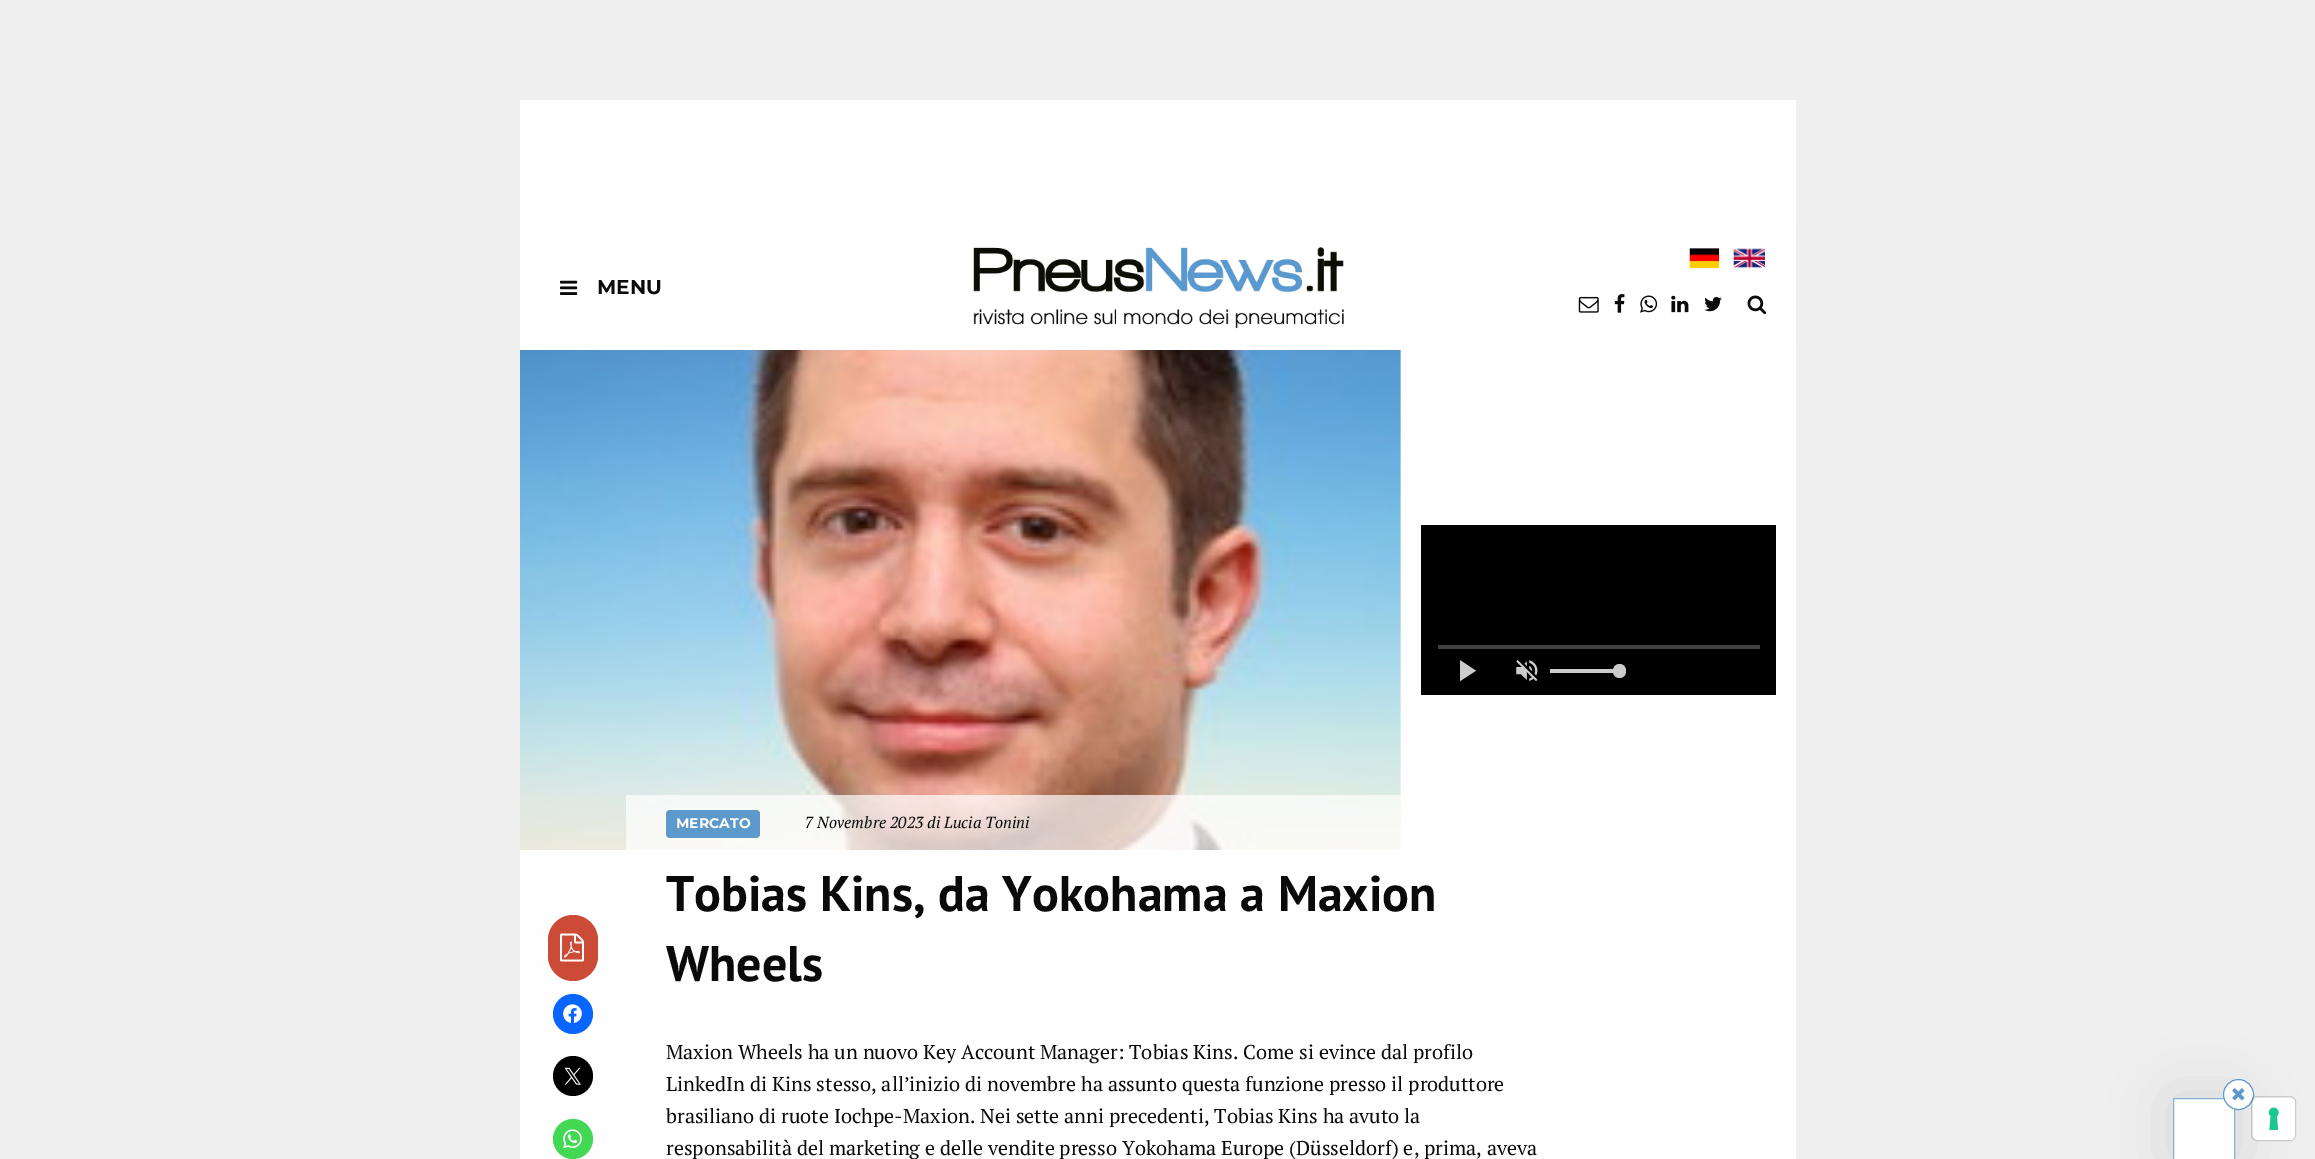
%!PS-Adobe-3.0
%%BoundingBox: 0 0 2315 1159
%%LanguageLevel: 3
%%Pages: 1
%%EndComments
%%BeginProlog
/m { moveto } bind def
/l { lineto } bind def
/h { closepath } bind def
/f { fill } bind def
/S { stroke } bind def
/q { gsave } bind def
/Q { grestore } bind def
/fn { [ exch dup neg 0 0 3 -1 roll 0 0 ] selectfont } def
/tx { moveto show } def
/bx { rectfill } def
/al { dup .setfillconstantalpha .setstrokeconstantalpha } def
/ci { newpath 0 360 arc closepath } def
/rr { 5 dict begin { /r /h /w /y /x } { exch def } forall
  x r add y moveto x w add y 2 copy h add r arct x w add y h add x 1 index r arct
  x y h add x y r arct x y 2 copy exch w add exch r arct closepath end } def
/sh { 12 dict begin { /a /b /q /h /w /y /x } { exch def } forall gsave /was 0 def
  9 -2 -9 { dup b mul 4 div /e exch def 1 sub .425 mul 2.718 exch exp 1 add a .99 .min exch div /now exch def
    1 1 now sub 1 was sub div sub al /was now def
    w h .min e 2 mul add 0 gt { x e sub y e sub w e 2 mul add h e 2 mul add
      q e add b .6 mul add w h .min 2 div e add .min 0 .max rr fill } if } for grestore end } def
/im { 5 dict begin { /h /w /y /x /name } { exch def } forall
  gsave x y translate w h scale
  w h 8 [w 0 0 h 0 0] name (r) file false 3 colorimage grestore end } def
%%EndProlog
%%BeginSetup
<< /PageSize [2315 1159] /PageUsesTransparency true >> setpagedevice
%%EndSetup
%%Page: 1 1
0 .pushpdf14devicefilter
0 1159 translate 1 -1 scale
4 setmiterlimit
0.937 setgray
0 0 2315 1159 bx
0.996 setgray
520 100 1276 125 bx
1 setgray
520 225 1276 125 bx
(image0.raw) 560 280 18 15 im
/Montserrat-Thin 20 fn
0.039 setgray
(MENU) 597 294 tx
(image1.raw) 973 247 371 82 im
(image2.raw) 1689 248 31 20 im
(image3.raw) 1733 248 32 20 im
(image4.raw) 1578 296 21 17 im
(image5.raw) 1614 294 11 19 im
(image6.raw) 1640 295 18 18 im
(image7.raw) 1671 295 18 18 im
(image8.raw) 1704 297 18 15 im
(image9.raw) 1747 295 20 20 im
0.996 setgray
520 350 1276 809 bx
(image10.raw) 520 350 881 500 im
0 setgray
1421 525 355 170 bx
0.251 setgray
1438 645 322 4 bx
(image11.raw) 1460 660 17 22 im
(image12.raw) 1516 660 22 22 im
0.8 setgray
1550 669 70 4 bx
1613 664 13 14 6.5 rr f
0.8 0.294 0.216 setrgbcolor
548 915 50 66 25 rr f
(image13.raw) 560 933 24 29 im
0.031 0.4 1 setrgbcolor
573 1014 20 ci f
(image14.raw) 563 1004 19 19 im
0 setgray
573 1076 20 ci f
(image15.raw) 564 1067 17 18 im
0.263 0.847 0.329 setrgbcolor
573 1139 20 ci f
(image16.raw) 563 1129 19 19 im
0.7 al
1 setgray
626 795 775 55 bx
1 al
0.369 0.6 0.8 setrgbcolor
666 810 94 28 4 rr f
/Montserrat-Thin 14 fn
0.996 setgray
(MERCATO) 676 828 tx
/PTSerif-Italic 16 fn
0.039 setgray
(7 Novembre 2023 di Lucia Tonini) 805 828 tx
/PTSans-Bold 50 fn
(Tobias Kins, da Yokohama a Maxion) 666 911 tx
(Wheels) 666 981 tx
/PTSerif-Regular 20 fn
(Maxion Wheels ha un nuovo Key Account Manager: Tobias Kins. Come si evince dal profilo) 666 1059 tx
(LinkedIn di Kins stesso, all’inizio di novembre ha assunto questa funzione presso il produttore) 666 1091 tx
(brasiliano di ruote Iochpe-Maxion. Nei sette anni precedenti, Tobias Kins ha avuto la) 666 1123 tx
(responsabilità del marketing e delle vendite presso Yokohama Europe \(Düsseldorf\) e, prima, aveva) 666 1155 tx
0 setgray
2173 1098 62 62 0 30 0.1 sh
0.996 setgray
2173.5 1098.5 m 2234.5 1098.5 l 2234.5 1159.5 l 2173.5 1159.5 l h q f Q
0.522 0.698 0.847 setrgbcolor
S
0.996 setgray
2238.5 1094.5 15 ci q f Q
0.369 0.6 0.8 setrgbcolor
S
(image17.raw) 2232 1088 13 13 im
0.15 al
0 setgray
2251.5 1096.5 44 44 5.5 rr S
1 al
1 setgray
2253 1098 42 42 5 rr f
(image18.raw) 2268 1107 11 23 im
.poppdf14devicefilter showpage
%%EOF
